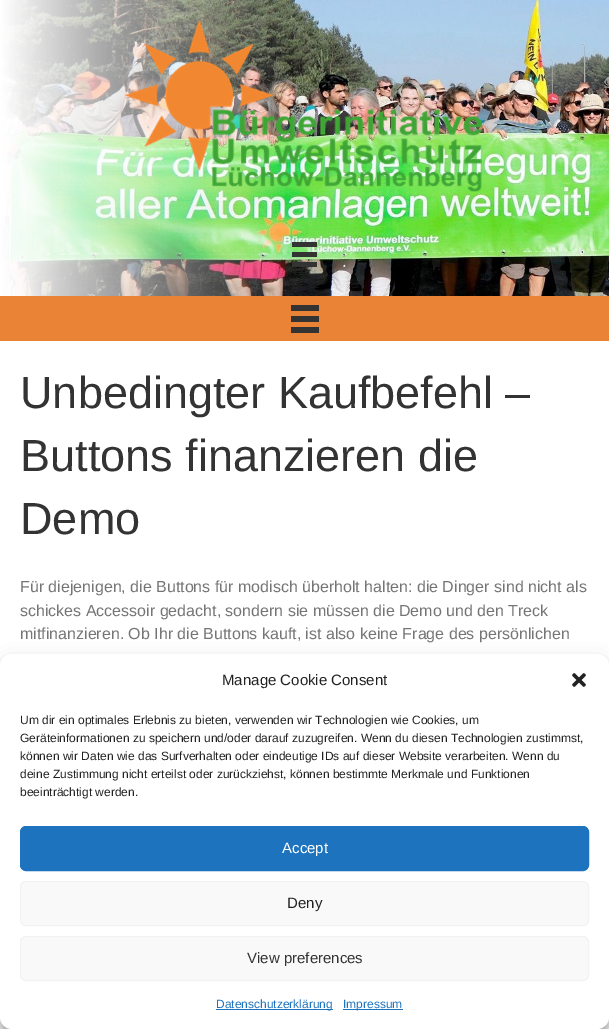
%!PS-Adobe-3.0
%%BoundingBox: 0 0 609 1029
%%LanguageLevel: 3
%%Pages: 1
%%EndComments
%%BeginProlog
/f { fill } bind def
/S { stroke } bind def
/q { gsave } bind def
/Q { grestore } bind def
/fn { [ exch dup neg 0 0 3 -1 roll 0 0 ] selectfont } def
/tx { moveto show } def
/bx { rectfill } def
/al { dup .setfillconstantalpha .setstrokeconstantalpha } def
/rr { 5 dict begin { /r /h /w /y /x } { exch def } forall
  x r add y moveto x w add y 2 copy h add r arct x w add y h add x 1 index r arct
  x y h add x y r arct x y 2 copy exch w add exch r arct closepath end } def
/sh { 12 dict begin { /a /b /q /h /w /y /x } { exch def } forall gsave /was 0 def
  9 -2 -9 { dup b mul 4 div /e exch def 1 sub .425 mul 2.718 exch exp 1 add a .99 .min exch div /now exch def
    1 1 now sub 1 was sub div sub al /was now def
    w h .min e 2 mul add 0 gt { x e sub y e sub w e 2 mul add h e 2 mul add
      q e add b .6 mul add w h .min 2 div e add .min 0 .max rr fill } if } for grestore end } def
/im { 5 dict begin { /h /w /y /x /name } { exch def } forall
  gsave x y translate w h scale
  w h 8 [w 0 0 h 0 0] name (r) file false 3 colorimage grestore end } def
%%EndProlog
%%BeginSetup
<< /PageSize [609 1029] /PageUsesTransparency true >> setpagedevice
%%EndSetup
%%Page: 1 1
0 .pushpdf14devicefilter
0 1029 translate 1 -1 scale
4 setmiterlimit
1 setgray
0 0 609 1029 bx
(image0.raw) 0 0 609 296 im
(image1.raw) 125 20 357 172 im
0.2 setgray
292 242 25 5 bx
292 252 25 5 bx
292 262 25 5 bx
0.922 0.514 0.216 setrgbcolor
0 296 609 45 bx
0.2 setgray
291 305 28 6 bx
291 316 28 6 bx
291 327 28 6 bx
/LiberationSans-Regular 45 fn
(Unbedingter Kaufbefehl –) 20 408 tx
(Buttons finanzieren die) 20 471 tx
(Demo) 20 534 tx
/LiberationSans-Regular 16 fn
0.459 setgray
(Für diejenigen, die Buttons für modisch überholt halten: die Dinger sind nicht als) 20 592 tx
(schickes Accessoir gedacht, sondern sie müssen die Demo und den Treck) 20 616 tx
(mitfinanzieren. Ob Ihr die Buttons kauft, ist also keine Frage des persönlichen) 20 639 tx
0 setgray
0 660 609 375 12 3 0.23 sh
0 664 609 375 12 10 0.19 sh
1 setgray
0 654 609 375 12 rr f
/LiberationSans-Regular 15 fn
0.133 setgray
(Manage Cookie Consent) 222 685 tx
(image2.raw) 572 673 14 14 im
/LiberationSans-Regular 12 fn
(Um dir ein optimales Erlebnis zu bieten, verwenden wir Technologien wie Cookies, um) 20 724 tx
(Geräteinformationen zu speichern und/oder darauf zuzugreifen. Wenn du diesen Technologien zustimmst,) 20 742 tx
(können wir Daten wie das Surfverhalten oder eindeutige IDs auf dieser Website verarbeiten. Wenn du) 20 760 tx
(deine Zustimmung nicht erteilst oder zurückziehst, können bestimmte Merkmale und Funktionen) 20 778 tx
(beeinträchtigt werden.) 20 796 tx
0.118 0.451 0.745 setrgbcolor
20.5 826.5 568 44 5.5 rr q f Q
S
/LiberationSans-Regular 15 fn
1 setgray
(Accept) 282 853 tx
0.976 setgray
20.5 881.5 568 44 5.5 rr q f Q
0.949 setgray
S
0.133 setgray
(Deny) 287 908 tx
0.976 setgray
20.5 936.5 568 44 5.5 rr q f Q
0.949 setgray
S
0.2 setgray
(View preferences) 247 963 tx
0.118 0.451 0.745 setrgbcolor
216 1009 117 1 bx
/LiberationSans-Regular 12 fn
(Datenschutzerklärung) 216 1008 tx
343 1009 60 1 bx
(Impressum) 343 1008 tx
.poppdf14devicefilter showpage
%%EOF
